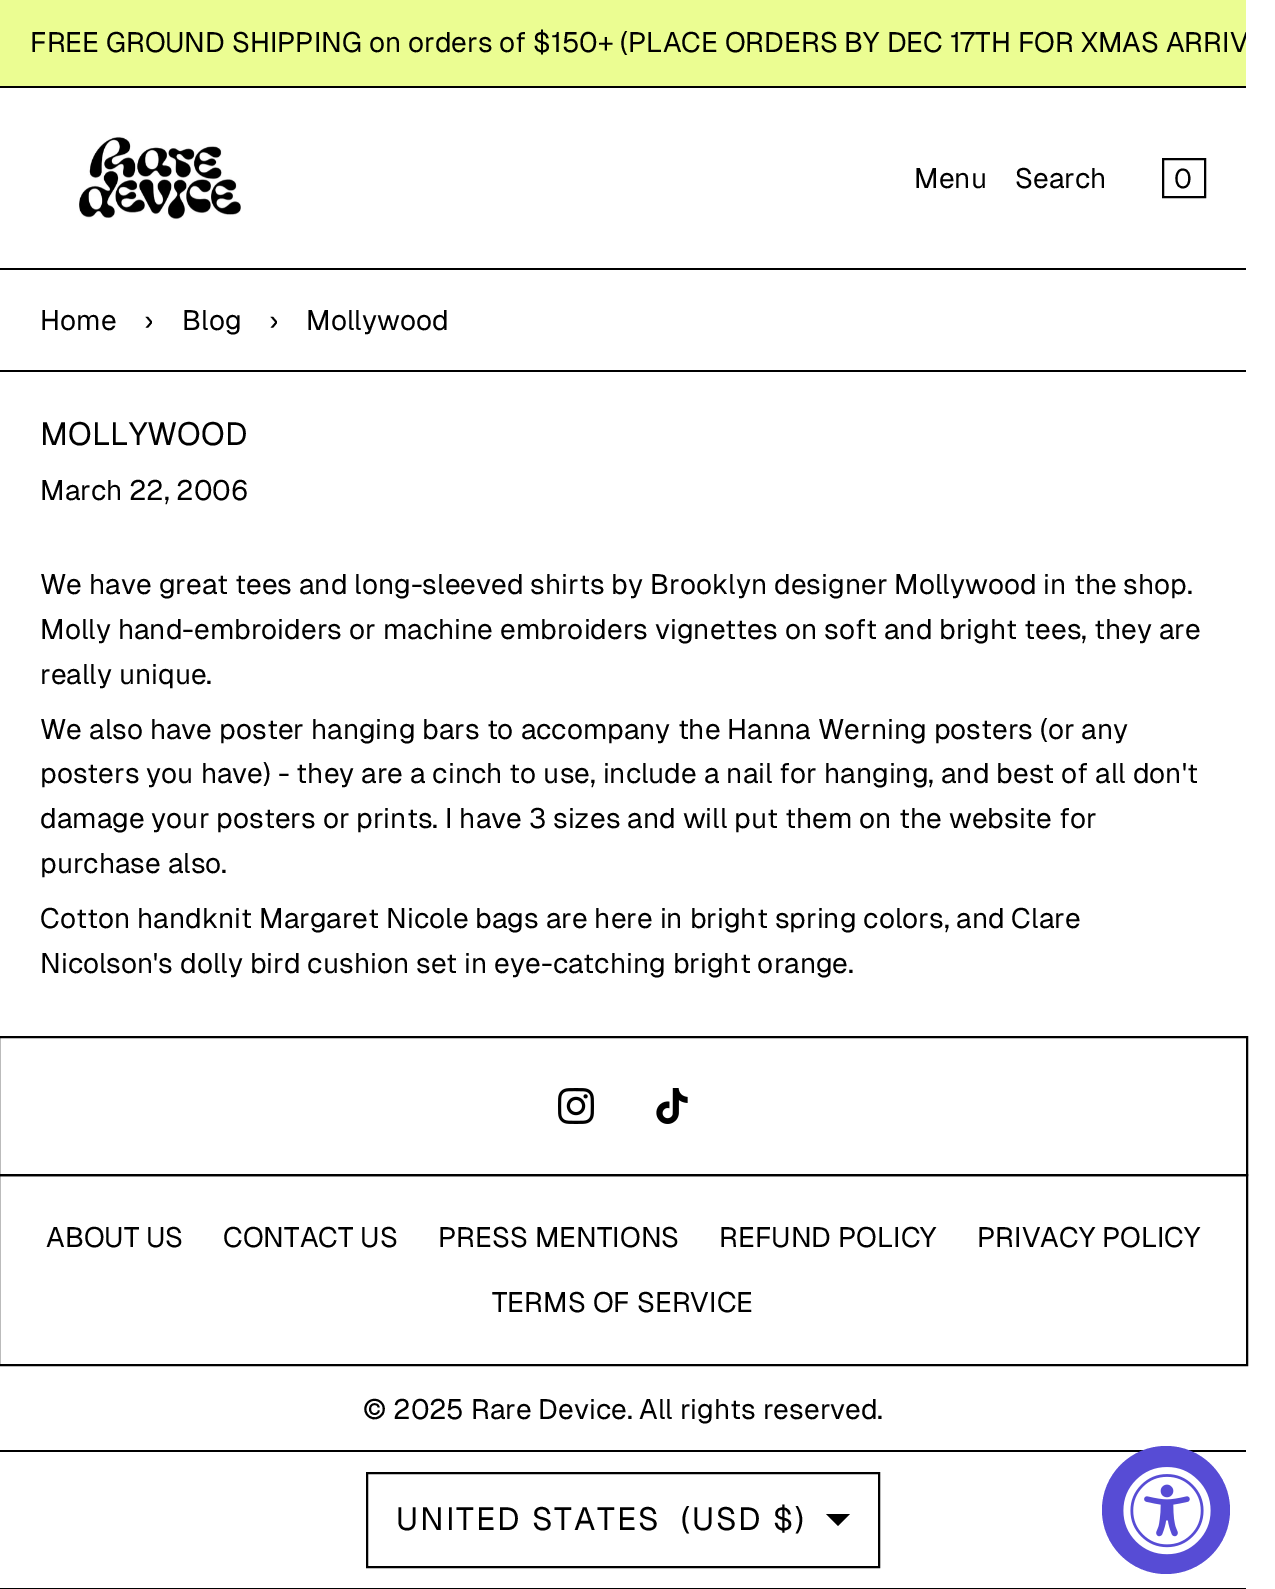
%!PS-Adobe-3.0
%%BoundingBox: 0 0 1275 1589
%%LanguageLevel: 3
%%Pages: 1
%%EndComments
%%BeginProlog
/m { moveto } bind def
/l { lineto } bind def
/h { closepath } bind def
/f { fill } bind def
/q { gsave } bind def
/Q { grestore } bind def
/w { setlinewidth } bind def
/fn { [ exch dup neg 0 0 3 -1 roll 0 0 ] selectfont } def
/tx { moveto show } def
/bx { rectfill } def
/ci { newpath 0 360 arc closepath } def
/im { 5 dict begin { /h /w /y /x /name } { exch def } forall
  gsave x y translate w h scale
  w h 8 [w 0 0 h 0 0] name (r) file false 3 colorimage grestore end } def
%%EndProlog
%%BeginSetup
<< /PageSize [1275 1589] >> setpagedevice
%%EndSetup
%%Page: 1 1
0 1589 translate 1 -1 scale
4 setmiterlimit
1 setgray
0 0 1275 1589 bx
0.922 0.992 0.573 setrgbcolor
0 0 1246 86 bx
0 setgray
0 86 1246 2 bx
q
0 0 1246 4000 rectclip
/Geist-Regular 28 fn
(FREE GROUND SHIPPING on orders of $150+ \(PLACE ORDERS BY DEC 17TH FOR XMAS ARRIV) 30 52 tx
Q
0 268 1246 2 bx
(image0.raw) 79 136 162 84 im
/Geist-Regular 28 fn
(Menu) 914 188 tx
(Search) 1015 188 tx
0 0 0.004 setrgbcolor
2 w
1163 159 42 38 rectstroke
/Geist-Regular 27 fn
0 setgray
1174 188 m 2 0 (0) ashow
0 370 1246 2 bx
/Geist-Regular 28 fn
(Home) 40 330 tx
(›) 144 330 tx
(Blog) 182 330 tx
(›) 269 330 tx
(Mollywood) 306 330 tx
/Geist-Regular 32 fn
(MOLLYWOOD) 40 445 tx
/Geist-Regular 28 fn
(March 22, 2006) 40 500 tx
(We have great tees and long-sleeved shirts by Brooklyn designer Mollywood in the shop.) 40 594 tx
(Molly hand-embroiders or machine embroiders vignettes on soft and bright tees, they are) 40 639 tx
(really unique.) 40 684 tx
(We also have poster hanging bars to accompany the Hanna Werning posters \(or any) 40 739 tx
(posters you have\) - they are a cinch to use, include a nail for hanging, and best of all don't) 40 783 tx
(damage your posters or prints. I have 3 sizes and will put them on the website for) 40 828 tx
(purchase also.) 40 873 tx
(Cotton handknit Margaret Nicole bags are here in bright spring colors, and Clare) 40 928 tx
(Nicolson's dolly bird cushion set in eye-catching bright orange.) 40 973 tx
-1 1037 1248 138 rectstroke
(image1.raw) 558 1088 36 36 im
(image2.raw) 656 1088 32 36 im
-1 1175 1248 190 rectstroke
(ABOUT US) 46 1247 tx
(CONTACT US) 223 1247 tx
(PRESS MENTIONS) 438 1247 tx
(REFUND POLICY) 719 1247 tx
(PRIVACY POLICY) 977 1247 tx
(TERMS OF SERVICE) 492 1312 tx
0 1588 1246 1 bx
(© 2025 Rare Device. All rights reserved.) 363 1419 tx
0 1450 1246 2 bx
367 1473 512 94 rectstroke
/Geist-Regular 32 fn
396 1530 m 2 0 (UNITED STATES) ashow
681 1530 m 2 0 (\(USD $\)) ashow
826 1514 m 850 1514 l 838 1526 l h f
0.341 0.298 0.835 setrgbcolor
1166 1510 64 ci f
(image3.raw) 1123 1467 88 88 im
showpage
%%EOF
